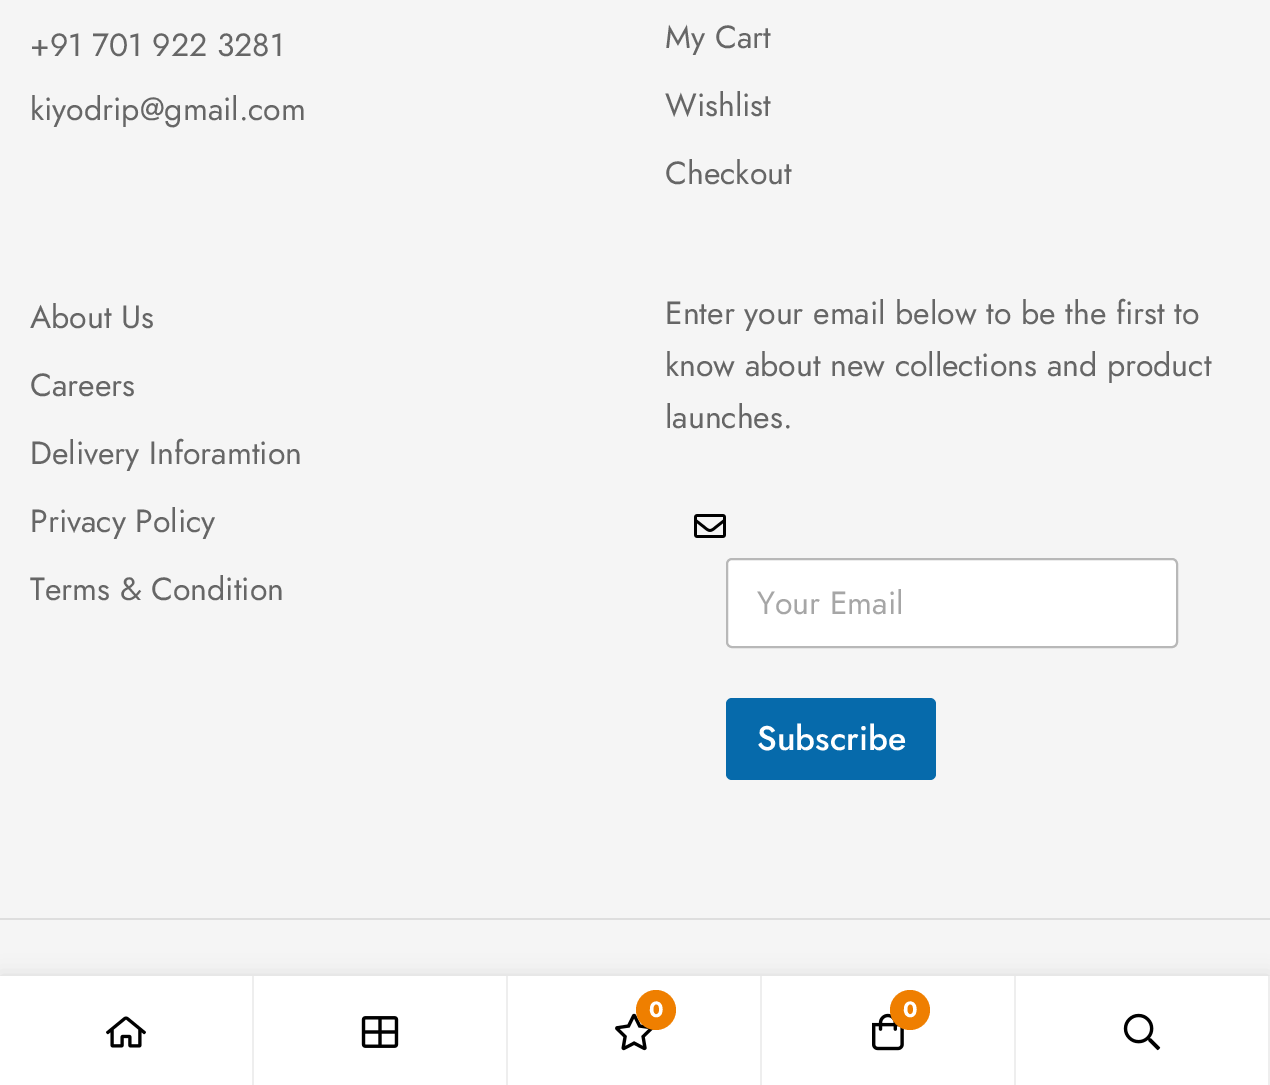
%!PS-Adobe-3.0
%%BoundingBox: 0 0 1270 1085
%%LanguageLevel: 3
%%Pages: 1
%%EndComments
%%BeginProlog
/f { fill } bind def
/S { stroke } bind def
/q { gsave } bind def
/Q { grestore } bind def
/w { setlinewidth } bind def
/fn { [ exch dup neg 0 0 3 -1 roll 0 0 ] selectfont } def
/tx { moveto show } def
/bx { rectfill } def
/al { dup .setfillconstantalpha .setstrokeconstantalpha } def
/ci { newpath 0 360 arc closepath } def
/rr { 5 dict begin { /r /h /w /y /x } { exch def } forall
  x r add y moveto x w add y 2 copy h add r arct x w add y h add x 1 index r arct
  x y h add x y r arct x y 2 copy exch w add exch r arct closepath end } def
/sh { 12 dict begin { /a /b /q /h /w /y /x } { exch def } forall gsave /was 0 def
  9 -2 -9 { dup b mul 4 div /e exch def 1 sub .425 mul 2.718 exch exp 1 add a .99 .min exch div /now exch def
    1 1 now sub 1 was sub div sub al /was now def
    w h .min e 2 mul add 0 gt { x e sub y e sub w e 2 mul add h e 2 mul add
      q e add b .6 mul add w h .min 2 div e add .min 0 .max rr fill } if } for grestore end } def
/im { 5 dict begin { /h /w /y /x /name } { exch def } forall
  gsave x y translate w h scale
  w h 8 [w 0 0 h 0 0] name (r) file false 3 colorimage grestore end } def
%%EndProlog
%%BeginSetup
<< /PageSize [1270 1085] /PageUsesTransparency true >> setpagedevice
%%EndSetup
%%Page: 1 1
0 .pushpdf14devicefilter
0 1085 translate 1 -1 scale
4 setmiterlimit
0.961 setgray
0 0 1270 1085 bx
/Jost-Regular 32 fn
0.4 setgray
(+91 701 922 3281) 30 56 tx
(kiyodrip@gmail.com) 30 120 tx
(My Cart) 665 48 tx
(Wishlist) 665 116 tx
(Checkout) 665 184 tx
(About Us) 30 328 tx
(Careers) 30 396 tx
(Delivery Inforamtion) 30 464 tx
(Privacy Policy) 30 532 tx
(Terms & Condition) 30 600 tx
(Enter your email below to be the first to) 665 324 tx
(know about new collections and product) 665 376 tx
(launches.) 665 428 tx
(image0.raw) 694 514 32 24 im
1 setgray
727 559 450 88 5 rr q f Q
0.722 setgray
2 w
S
0.651 setgray
(Your Email) 757 614 tx
0.024 0.416 0.671 setrgbcolor
726 698 210 82 6 rr f
/Jost-Medium 34 fn
1 setgray
(Subscribe) 757 750 tx
0.871 setgray
0 918 1270 2 bx
0 setgray
0 976 1270 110 0 10 0.11 sh
1 setgray
0 976 1268 109 bx
0.933 setgray
252 976 2 109 bx
(image1.raw) 106 1016 40 32 im
506 976 2 109 bx
(image2.raw) 361 1016 38 32 im
760 976 2 109 bx
(image3.raw) 615 1013 38 38 im
0.937 0.498 0 setrgbcolor
656 1010 20 ci f
/Jost-Bold 22 fn
1 setgray
(0) 649 1017 tx
0.933 setgray
1014 976 2 109 bx
(image4.raw) 872 1013 32 38 im
0.937 0.498 0 setrgbcolor
910 1010 20 ci f
1 setgray
(0) 903 1017 tx
0.933 setgray
1268 976 2 109 bx
(image5.raw) 1123 1013 38 38 im
.poppdf14devicefilter showpage
%%EOF
